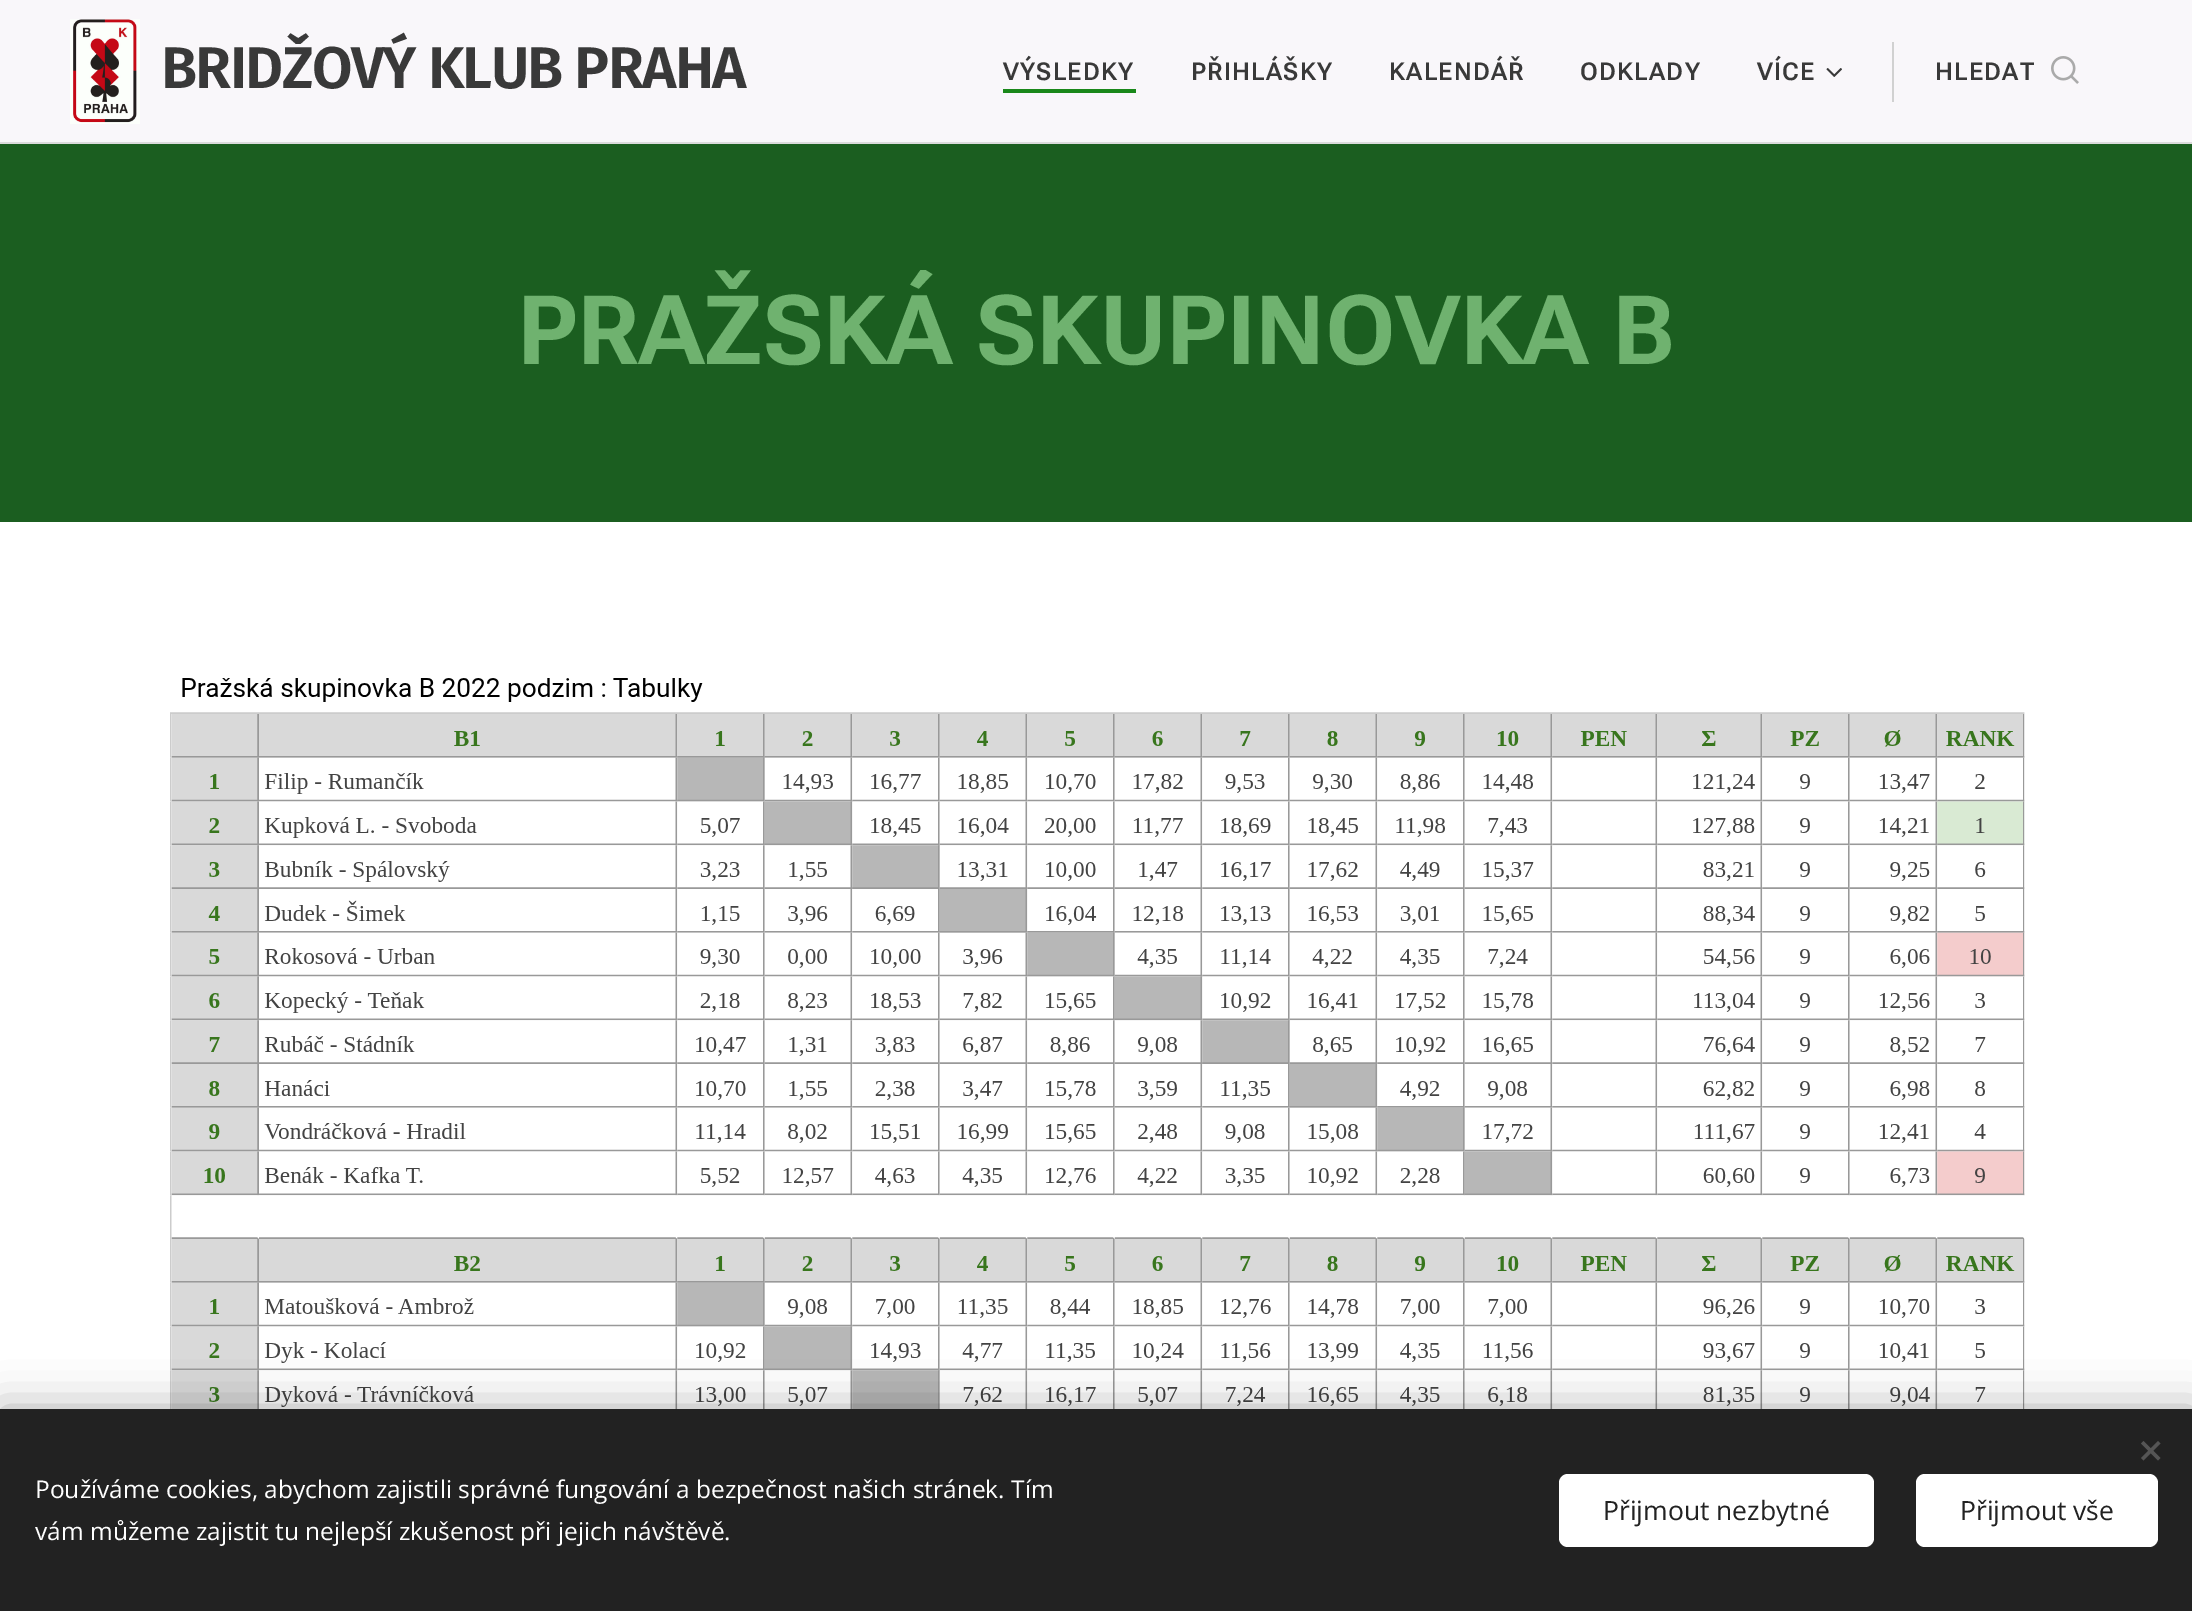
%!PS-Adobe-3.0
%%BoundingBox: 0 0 2192 1611
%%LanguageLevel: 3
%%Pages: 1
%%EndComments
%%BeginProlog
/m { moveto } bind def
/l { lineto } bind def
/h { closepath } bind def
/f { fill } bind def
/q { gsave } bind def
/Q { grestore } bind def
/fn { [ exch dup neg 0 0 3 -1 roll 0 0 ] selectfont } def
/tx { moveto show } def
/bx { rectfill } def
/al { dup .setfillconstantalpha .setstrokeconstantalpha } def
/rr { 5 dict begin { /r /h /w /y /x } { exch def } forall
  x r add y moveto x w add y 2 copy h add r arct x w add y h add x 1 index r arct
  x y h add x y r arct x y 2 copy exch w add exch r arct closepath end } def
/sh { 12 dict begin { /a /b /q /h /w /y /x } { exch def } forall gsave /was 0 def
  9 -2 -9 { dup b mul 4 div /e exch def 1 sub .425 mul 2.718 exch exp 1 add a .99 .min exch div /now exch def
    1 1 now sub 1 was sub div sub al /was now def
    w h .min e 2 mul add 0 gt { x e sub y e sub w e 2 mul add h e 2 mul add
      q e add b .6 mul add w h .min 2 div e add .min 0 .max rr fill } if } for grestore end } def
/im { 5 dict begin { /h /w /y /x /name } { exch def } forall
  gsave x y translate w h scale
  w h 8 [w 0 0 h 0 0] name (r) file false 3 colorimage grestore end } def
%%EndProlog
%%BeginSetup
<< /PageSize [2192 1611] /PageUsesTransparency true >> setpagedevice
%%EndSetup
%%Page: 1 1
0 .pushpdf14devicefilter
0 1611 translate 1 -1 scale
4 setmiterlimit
1 setgray
0 0 2192 1611 bx
0.976 0.969 0.98 setrgbcolor
0 0 2192 142 bx
(image0.raw) 70 19 70 105 im
/FiraSans-SemiBold 58.75 fn
0.224 setgray
161 88 m -1.7 0 (BRIDŽOVÝ KLUB PRAHA) ashow
/RobotoFlex-SemiBold 24.5 fn
1003 80 m 1.25 0 (VÝSLEDKY) ashow
0.102 0.533 0.102 setrgbcolor
1003 89 133 4 bx
0.224 setgray
1191 80 m 1.25 0 (PŘIHLÁŠKY) ashow
1389 80 m 1.25 0 (KALENDÁŘ) ashow
1580 80 m 1.25 0 (ODKLADY) ashow
1757 80 m 1.25 0 (VÍCE) ashow
(image1.raw) 1826 68 16 9 im
0.82 setgray
1892 42 2 60 bx
0.224 setgray
1935 80 m 1.25 0 (HLEDAT) ashow
(image2.raw) 2051 56 28 28 im
0.859 setgray
0 142 2192 2 bx
0.106 0.369 0.125 setrgbcolor
0 144 2192 378 bx
q
313 270 1567 126 rectclip
/RobotoFlex-Bold 96.25 fn
0.435 0.698 0.435 setrgbcolor
(PRAŽSKÁ SKUPINOVKA B) 517 364 tx
Q
(image3.raw) 170 678 1855 731 im
0 setgray
0 1409 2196 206 0 22 0.33 sh
0.133 setgray
0 1409 2192 202 bx
0.333 setgray
2141 1458 m 2158 1441 l 2160.5 1443.5 l 2143.5 1460.5 l h f
2143.5 1441 m 2160.5 1458 l 2158 1460.5 l 2141 1443.5 l h f
/OpenSans-Regular 24.5 fn
1 setgray
(Používáme cookies, abychom zajistili správné fungování a bezpečnost našich stránek. Tím) 35 1498 tx
(vám můžeme zajistit tu nejlepší zkušenost při jejich návštěvě.) 35 1540 tx
1559 1474 315 73 9 rr f
/OpenSans-Regular 26.5 fn
0.133 setgray
(Přijmout nezbytné) 1603 1520 tx
1 setgray
1916 1474 242 73 9 rr f
0.133 setgray
(Přijmout vše) 1960 1520 tx
.poppdf14devicefilter showpage
%%EOF
